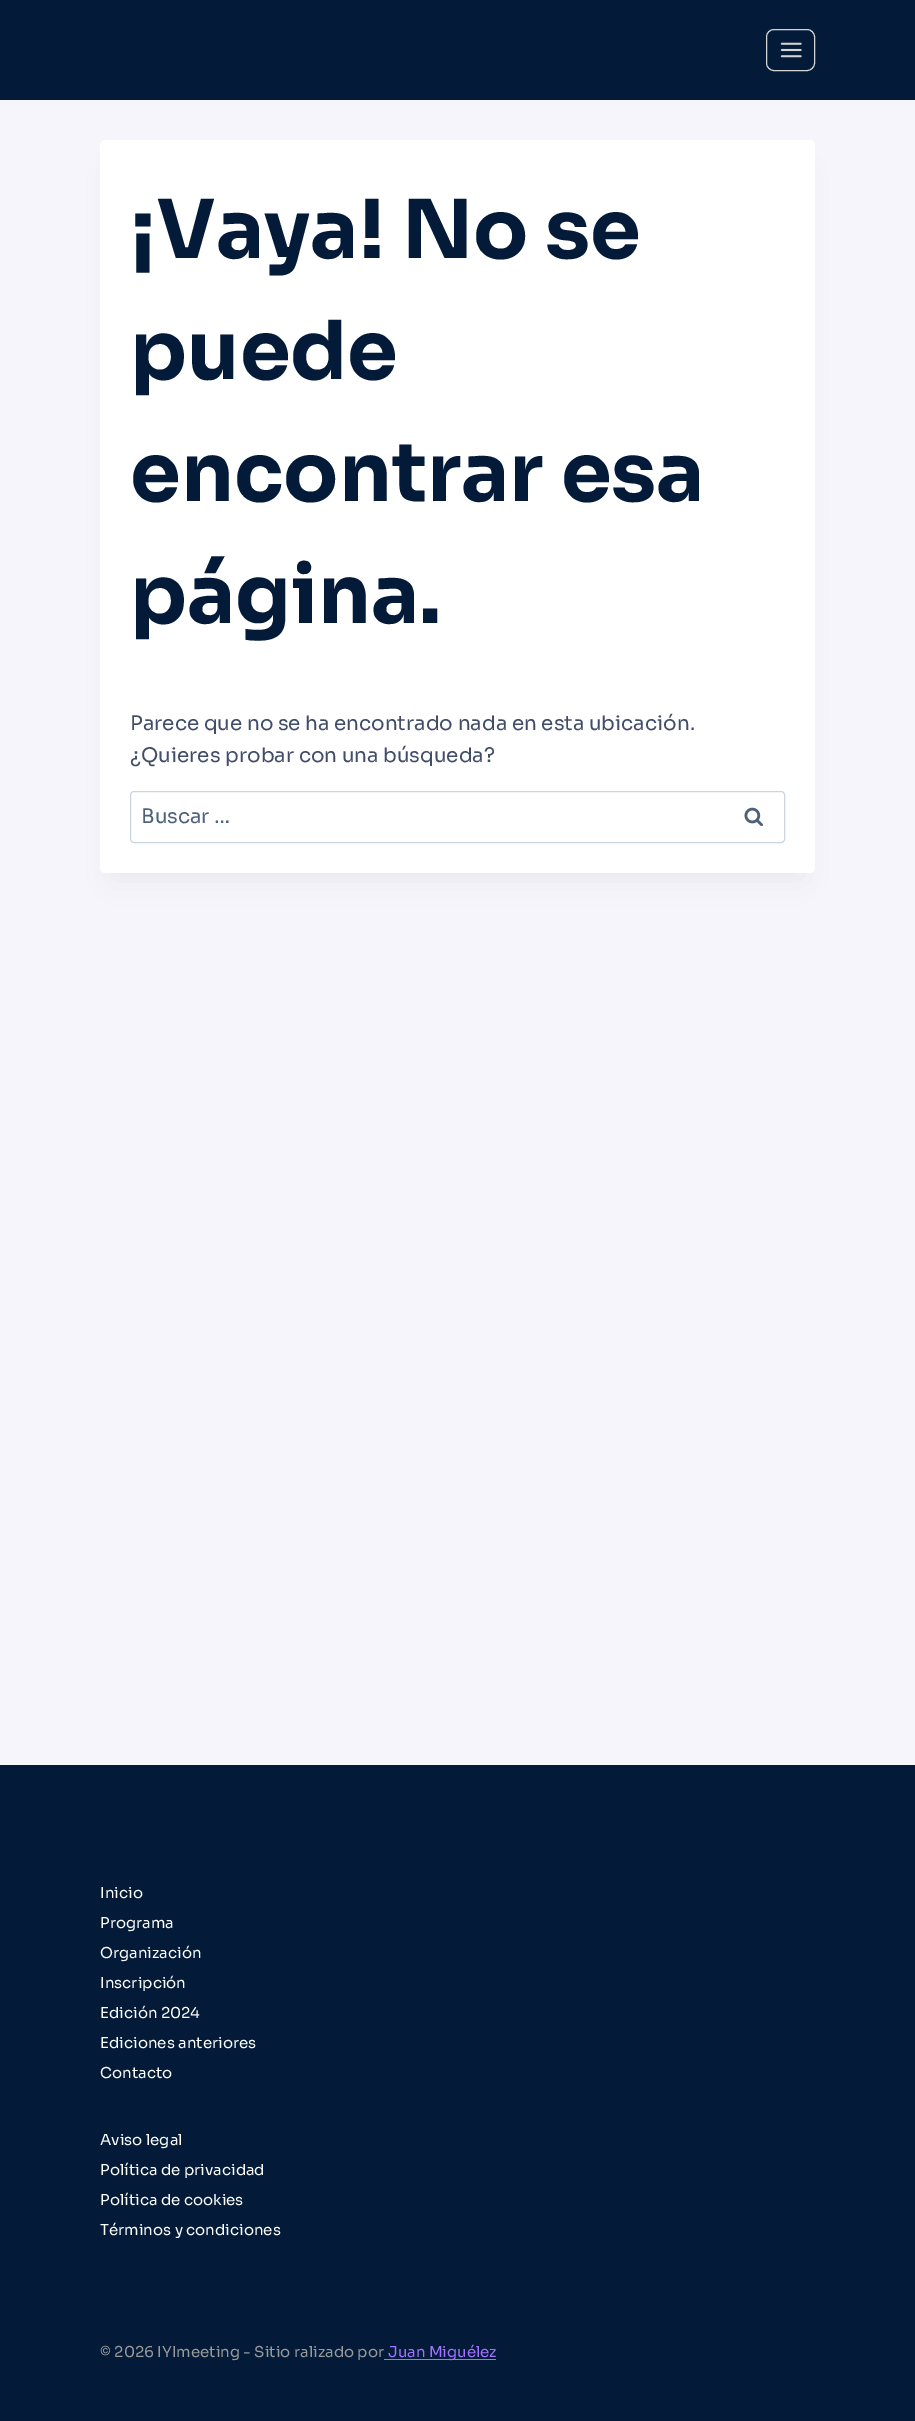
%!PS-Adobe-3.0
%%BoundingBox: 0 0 915 2421
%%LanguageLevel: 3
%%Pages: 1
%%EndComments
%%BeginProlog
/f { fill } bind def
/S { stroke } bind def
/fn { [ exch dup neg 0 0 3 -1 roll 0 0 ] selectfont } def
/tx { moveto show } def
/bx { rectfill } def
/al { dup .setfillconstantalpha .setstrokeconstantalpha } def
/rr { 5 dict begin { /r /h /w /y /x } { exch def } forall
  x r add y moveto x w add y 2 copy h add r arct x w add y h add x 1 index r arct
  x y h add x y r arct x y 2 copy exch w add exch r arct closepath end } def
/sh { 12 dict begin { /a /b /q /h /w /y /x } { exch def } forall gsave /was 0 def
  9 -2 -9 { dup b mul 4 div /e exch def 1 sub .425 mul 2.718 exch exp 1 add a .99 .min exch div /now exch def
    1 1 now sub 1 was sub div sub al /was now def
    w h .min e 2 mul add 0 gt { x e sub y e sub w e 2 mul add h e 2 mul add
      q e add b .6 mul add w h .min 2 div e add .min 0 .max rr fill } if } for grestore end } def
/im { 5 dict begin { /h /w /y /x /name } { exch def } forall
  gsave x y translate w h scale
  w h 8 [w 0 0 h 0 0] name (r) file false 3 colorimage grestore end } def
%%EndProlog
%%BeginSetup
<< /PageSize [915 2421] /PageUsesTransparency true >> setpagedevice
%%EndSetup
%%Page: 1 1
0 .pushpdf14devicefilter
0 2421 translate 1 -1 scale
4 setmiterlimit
0.961 0.961 0.984 setrgbcolor
0 0 915 2421 bx
0.012 0.106 0.22 setrgbcolor
0 0 915 100 bx
0.831 setgray
766.5 29.5 48 41 7.5 rr S
(image0.raw) 780 42 22 16 im
0 setgray
113 171 690 708 0 15.5 0.05 sh
1 setgray
100 140 715 733 5 rr f
/Sora-Bold 81.25 fn
0.012 0.106 0.22 setrgbcolor
(¡Vaya! No se) 130 258 tx
(puede) 130 379 tx
(encontrar esa) 130 501 tx
(página.) 130 623 tx
/Sora-Regular 20 fn
0.255 0.298 0.412 setrgbcolor
(Parece que no se ha encontrado nada en esta ubicación.) 130 730 tx
(¿Quieres probar con una búsqueda?) 130 762 tx
0.796 0.835 0.878 setrgbcolor
130.5 791.5 654 51 3.5 rr S
0.302 0.38 0.475 setrgbcolor
(Buscar …) 141 823 tx
(image1.raw) 744 807 19 19 im
0.012 0.106 0.22 setrgbcolor
0 1765 915 656 bx
/Sora-Regular 15 fn
1 setgray
(Inicio) 100 1898 tx
(Programa) 100 1928 tx
(Organización) 100 1958 tx
(Inscripción) 100 1988 tx
(Edición 2024) 100 2018 tx
(Ediciones anteriores) 100 2048 tx
(Contacto) 100 2078 tx
(Aviso legal) 100 2145 tx
(Política de privacidad) 100 2175 tx
(Política de cookies) 100 2205 tx
(Términos y condiciones) 100 2235 tx
0.6 setgray
(© 2026 IYImeeting - Sitio ralizado por) 100 2357 tx
0.639 0.439 1 setrgbcolor
384 2359 112 1 bx
(Juan Miguélez) 388 2357 tx
.poppdf14devicefilter showpage
%%EOF
